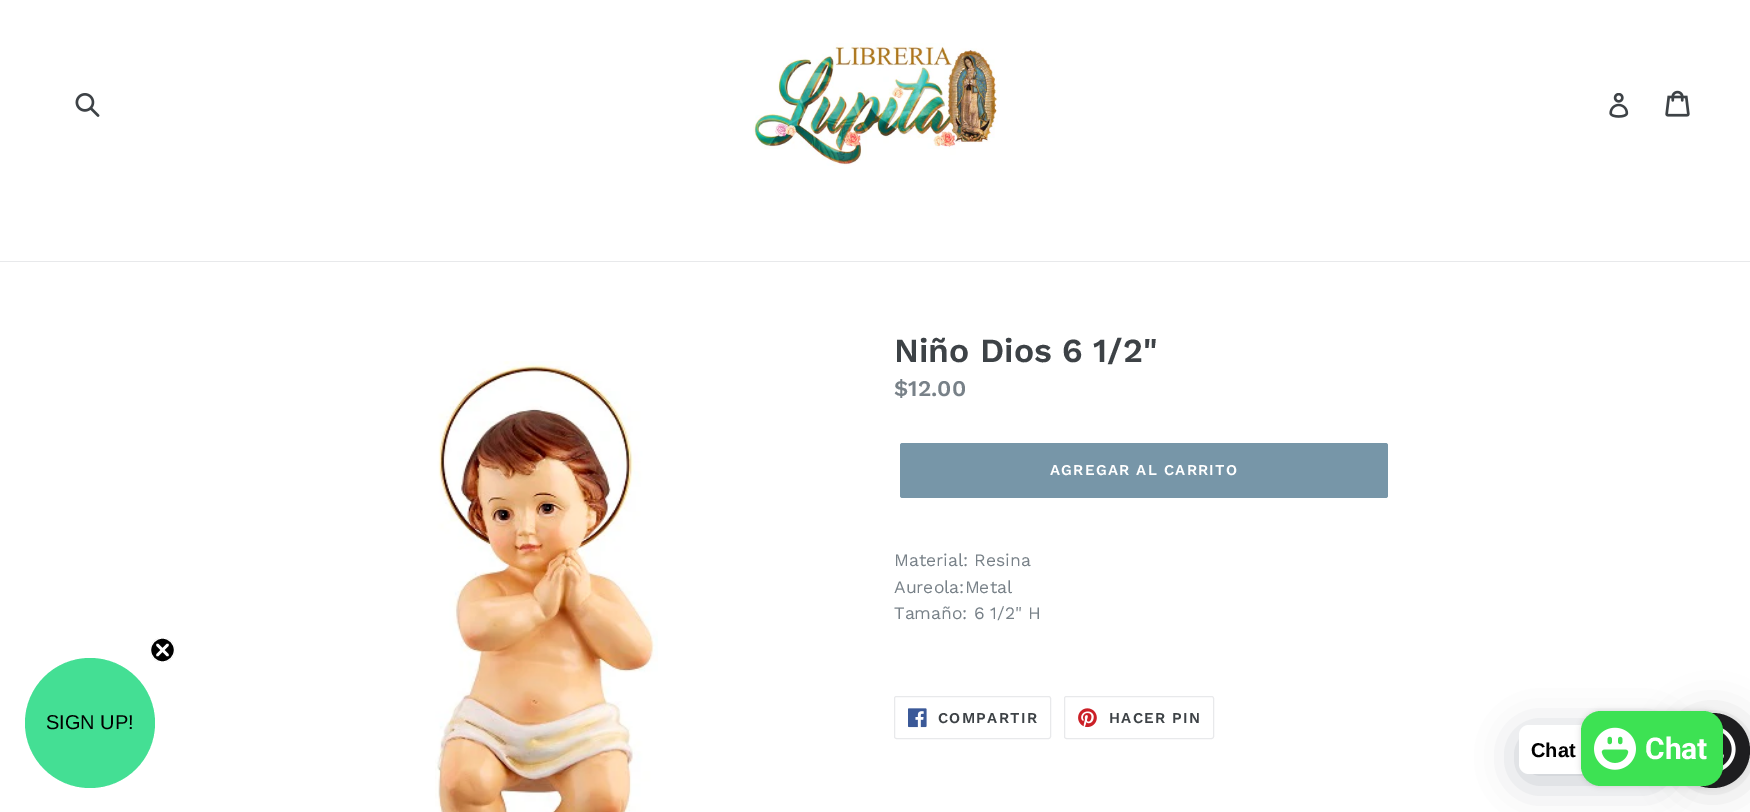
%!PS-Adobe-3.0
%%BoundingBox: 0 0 1750 812
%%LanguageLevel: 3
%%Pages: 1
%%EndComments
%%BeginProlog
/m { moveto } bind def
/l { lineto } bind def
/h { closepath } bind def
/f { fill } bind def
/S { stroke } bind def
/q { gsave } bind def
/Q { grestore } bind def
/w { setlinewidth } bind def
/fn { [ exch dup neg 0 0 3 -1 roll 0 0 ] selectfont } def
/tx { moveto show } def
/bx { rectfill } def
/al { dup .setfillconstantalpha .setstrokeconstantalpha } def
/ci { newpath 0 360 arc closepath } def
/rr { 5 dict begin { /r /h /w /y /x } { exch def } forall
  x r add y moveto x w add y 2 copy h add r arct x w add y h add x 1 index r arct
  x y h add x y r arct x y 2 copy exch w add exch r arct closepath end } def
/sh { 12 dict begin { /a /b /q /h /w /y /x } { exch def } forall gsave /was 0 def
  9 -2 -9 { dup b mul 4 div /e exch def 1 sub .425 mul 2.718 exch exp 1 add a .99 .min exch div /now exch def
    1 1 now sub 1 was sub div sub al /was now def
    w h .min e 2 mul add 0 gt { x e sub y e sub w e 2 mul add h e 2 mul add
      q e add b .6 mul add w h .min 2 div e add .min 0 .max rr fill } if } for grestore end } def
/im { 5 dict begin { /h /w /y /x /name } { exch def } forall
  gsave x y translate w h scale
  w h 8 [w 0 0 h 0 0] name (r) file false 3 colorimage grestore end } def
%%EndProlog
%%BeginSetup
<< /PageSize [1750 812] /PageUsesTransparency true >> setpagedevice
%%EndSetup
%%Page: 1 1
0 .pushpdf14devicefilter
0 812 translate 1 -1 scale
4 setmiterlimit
1 setgray
0 0 1750 812 bx
(image0.raw) 75 93 25 24 im
(image1.raw) 753 43 247 123 im
(image2.raw) 1609 93 20 25 im
(image3.raw) 1665 90 25 27 im
0.91 0.914 0.922 setrgbcolor
0 261 1750 1 bx
0.267 0.875 0.58 setrgbcolor
90 723 65 ci f
0 setgray
162.5 650 12 ci f
q
150 638 25 25 rectclip
1 setgray
1.2 w
162.5 650 12 ci S
Q
1 setgray
2.5 w
1 setlinecap
1 setlinejoin
157.5 645 m 167.5 655 l 157.5 655 m 167.5 645 l h S
/LiberationSans-Regular 20 fn
0 setgray
(SIGN UP!) 46 729 tx
(image4.raw) 435 361 223 451 im
/WorkSans-SemiBold 33.75 fn
0.239 0.259 0.275 setrgbcolor
(Niño Dios 6 1/2") 894 362 tx
/WorkSans-SemiBold 22.5 fn
0.471 0.506 0.533 setrgbcolor
($12.00) 894 396 tx
0.467 0.588 0.659 setrgbcolor
900 443 488 55 2.5 rr f
/WorkSans-SemiBold 15 fn
1 setgray
1050 475 m 1.25 0 (AGREGAR AL CARRITO) ashow
/WorkSans-Regular 17.5 fn
0.471 0.506 0.533 setrgbcolor
(Material: Resina) 894 566 tx
(Aureola:Metal) 894 593 tx
(Tamaño: 6 1/2" H) 894 619 tx
0.91 0.914 0.922 setrgbcolor
1 w
0 setlinecap
0 setlinejoin
894.5 696.5 156 42 2 rr S
(image5.raw) 908 708 19 20 im
/WorkSans-SemiBold 15 fn
0.239 0.259 0.275 setrgbcolor
938 723 m 1.25 0 (COMPARTIR) ashow
0.91 0.914 0.922 setrgbcolor
1064.5 696.5 149 42 2 rr S
(image6.raw) 1078 708 19 20 im
0.239 0.259 0.275 setrgbcolor
1109 723 m 1.25 0 (HACER PIN) ashow
0 setgray
1675 715 75 75 37.5 20 0.16 sh
1675 714 75 75 37.5 4 0.06 sh
0.118 0.118 0.125 setrgbcolor
1712.5 750.5 37.5 ci f
0 0.071 0.18 setrgbcolor
1519 733 144 48 10 20 0.24 sh
1 setgray
1519 725 144 49 10 rr f
/LiberationSans-Bold 20 fn
0 setgray
(Chat) 1531 757 tx
(image7.raw) 1722 728 14 43 im
1581 711 142 75 20 3 0.15 sh
0.239 0.886 0.325 setrgbcolor
1581 711 142 75 20 rr f
(image8.raw) 1594 727 42 43 im
/Roboto-Bold 30 fn
1 setgray
(Chat) 1645 759 tx
.poppdf14devicefilter showpage
%%EOF
